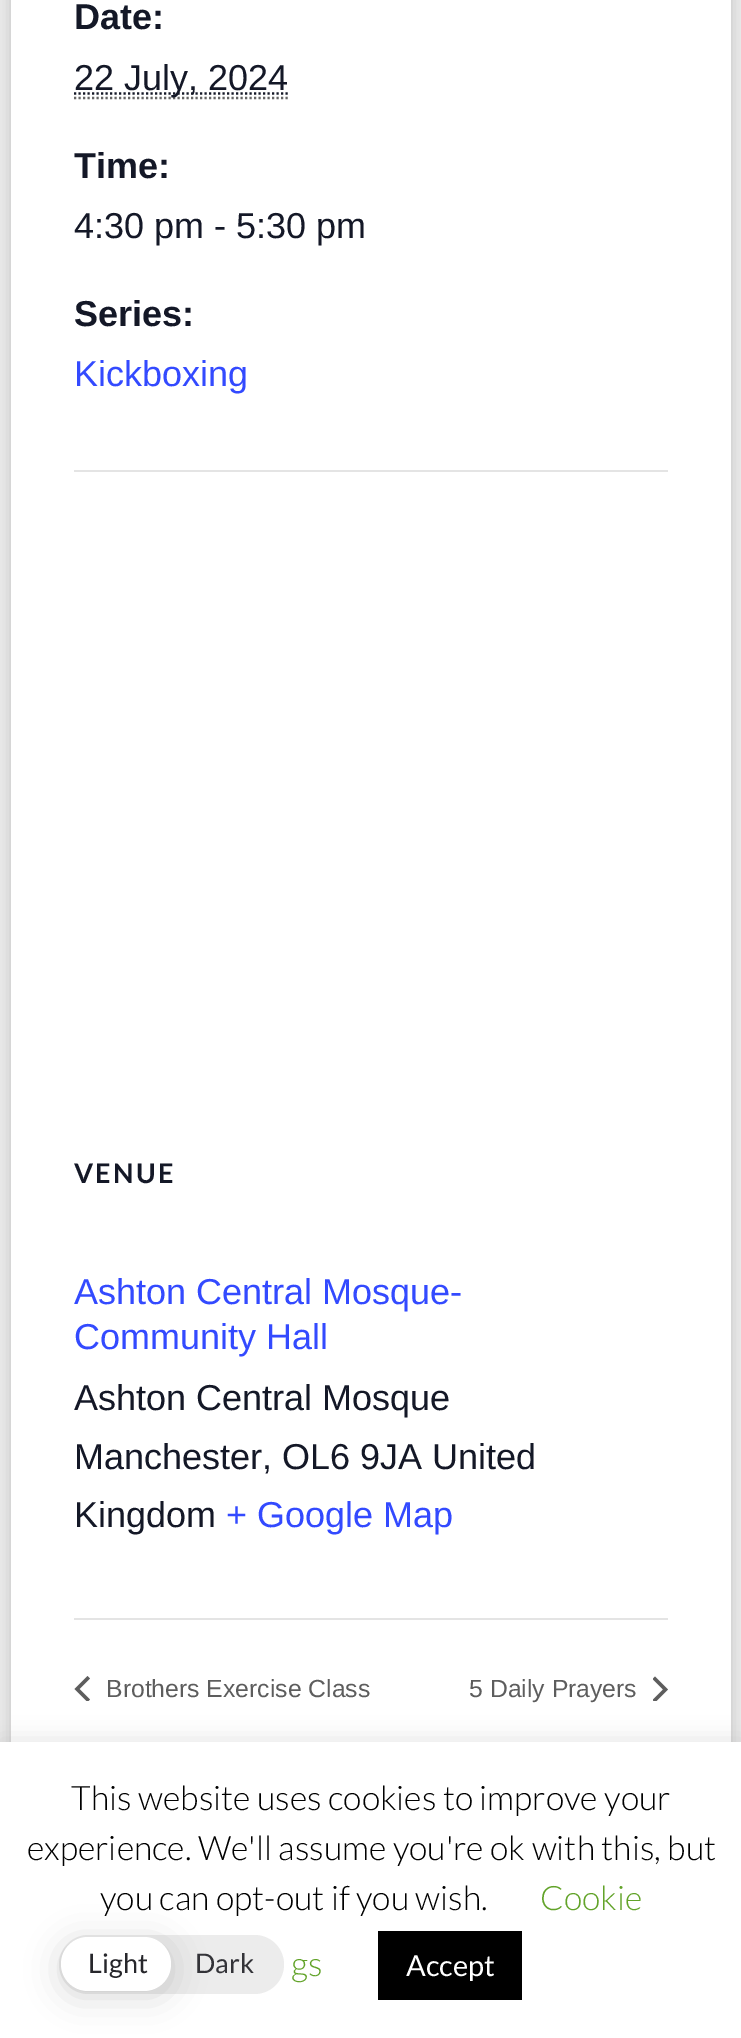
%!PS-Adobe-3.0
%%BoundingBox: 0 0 741 2038
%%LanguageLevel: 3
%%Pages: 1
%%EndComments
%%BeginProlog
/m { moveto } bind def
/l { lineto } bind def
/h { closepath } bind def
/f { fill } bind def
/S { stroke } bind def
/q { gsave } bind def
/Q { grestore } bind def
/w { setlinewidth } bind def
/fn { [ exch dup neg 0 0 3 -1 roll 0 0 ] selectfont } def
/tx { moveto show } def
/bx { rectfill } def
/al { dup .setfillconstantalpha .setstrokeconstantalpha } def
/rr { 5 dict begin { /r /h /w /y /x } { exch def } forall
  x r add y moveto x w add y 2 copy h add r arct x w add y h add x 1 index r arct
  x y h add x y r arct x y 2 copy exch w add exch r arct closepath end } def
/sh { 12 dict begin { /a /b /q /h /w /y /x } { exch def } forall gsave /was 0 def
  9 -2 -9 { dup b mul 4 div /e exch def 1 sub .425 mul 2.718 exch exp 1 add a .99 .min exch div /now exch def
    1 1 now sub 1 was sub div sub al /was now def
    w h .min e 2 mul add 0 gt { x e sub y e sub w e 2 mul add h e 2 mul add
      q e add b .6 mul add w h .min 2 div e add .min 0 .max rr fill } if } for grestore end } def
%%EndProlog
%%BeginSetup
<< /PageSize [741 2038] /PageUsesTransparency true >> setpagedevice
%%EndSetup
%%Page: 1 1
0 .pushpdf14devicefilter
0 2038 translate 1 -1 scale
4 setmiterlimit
0.918 setgray
0 0 741 2038 bx
0.392 setgray
11 -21 720 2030 0 7 0.3 sh
1 setgray
11 0 720 1742 bx
/LiberationSans-Bold 36 fn
0.078 0.094 0.153 setrgbcolor
(Date:) 74 29 tx
0.4 setgray
2.2 w
[2.25 2.25] 0 setdash
74 98 m 288 98 l S
0.078 0.094 0.153 setrgbcolor
74 93.5 m 288.5 93.5 l S
/LiberationSans-Regular 36 fn
(22 July, 2024) 74 90 tx
/LiberationSans-Bold 36 fn
(Time:) 74 178 tx
/LiberationSans-Regular 36 fn
(4:30 pm - 5:30 pm) 74 238 tx
/LiberationSans-Bold 36 fn
(Series:) 74 326 tx
/LiberationSans-Regular 36 fn
0.2 0.29 1 setrgbcolor
(Kickboxing) 74 386 tx
0.894 setgray
74 470 594 2 bx
/Lato-Bold 27 fn
0.078 0.094 0.153 setrgbcolor
74 1183 m 2.25 0 (VENUE) ashow
/LiberationSans-Regular 36 fn
0.2 0.29 1 setrgbcolor
(Ashton Central Mosque-) 74 1304 tx
(Community Hall) 74 1349 tx
0.078 0.094 0.153 setrgbcolor
(Ashton Central Mosque) 74 1410 tx
(Manchester, OL6 9JA United) 74 1469 tx
(Kingdom) 74 1527 tx
0.2 0.29 1 setrgbcolor
(+ Google Map) 226 1527 tx
0.894 setgray
74 1618 594 2 bx
q
74 1676 16 25 rectclip
0.365 setgray
90 1699.5 m 87.5 1702 l 74.5 1689 l 87.5 1676 l 90 1678.5 l 79.5 1689 l h f
Q
/LiberationSans-Regular 24.75 fn
0.365 setgray
(Brothers Exercise Class) 106 1697 tx
(5 Daily Prayers) 469 1697 tx
q
653 1676 15 25 rectclip
652.5 1679 m 655 1676.5 l 668 1689.5 l 655 1702.5 l 652.5 1700 l 663 1689.5 l h f
Q
0.675 0.671 0.671 setrgbcolor
0 1739 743 297 0 11 0.3 sh
1 setgray
0 1742 741 296 bx
/Lato-Light 33.75 fn
0 setgray
(This website uses cookies to improve your) 71 1810 tx
(experience. We'll assume you're ok with this, but) 27 1860 tx
(you can opt-out if you wish.) 100 1910 tx
0.384 0.639 0.161 setrgbcolor
(Cookie) 540 1910 tx
(gs) 291 1976 tx
0 setgray
378 1931 144 69 bx
/Lato-Regular 29 fn
1 setgray
(Accept) 406 1976 tx
0.925 setgray
59 1935 225 59 29.5 rr f
0 setgray
61 1942 110 54 27 17 0.15 sh
1 setgray
61 1937 110 54 27 rr f
/Lato-Regular 27 fn
0.153 0.153 0.173 setrgbcolor
(Light) 88 1973 tx
0.2 0.2 0.22 setrgbcolor
(Dark) 195 1973 tx
.poppdf14devicefilter showpage
%%EOF
